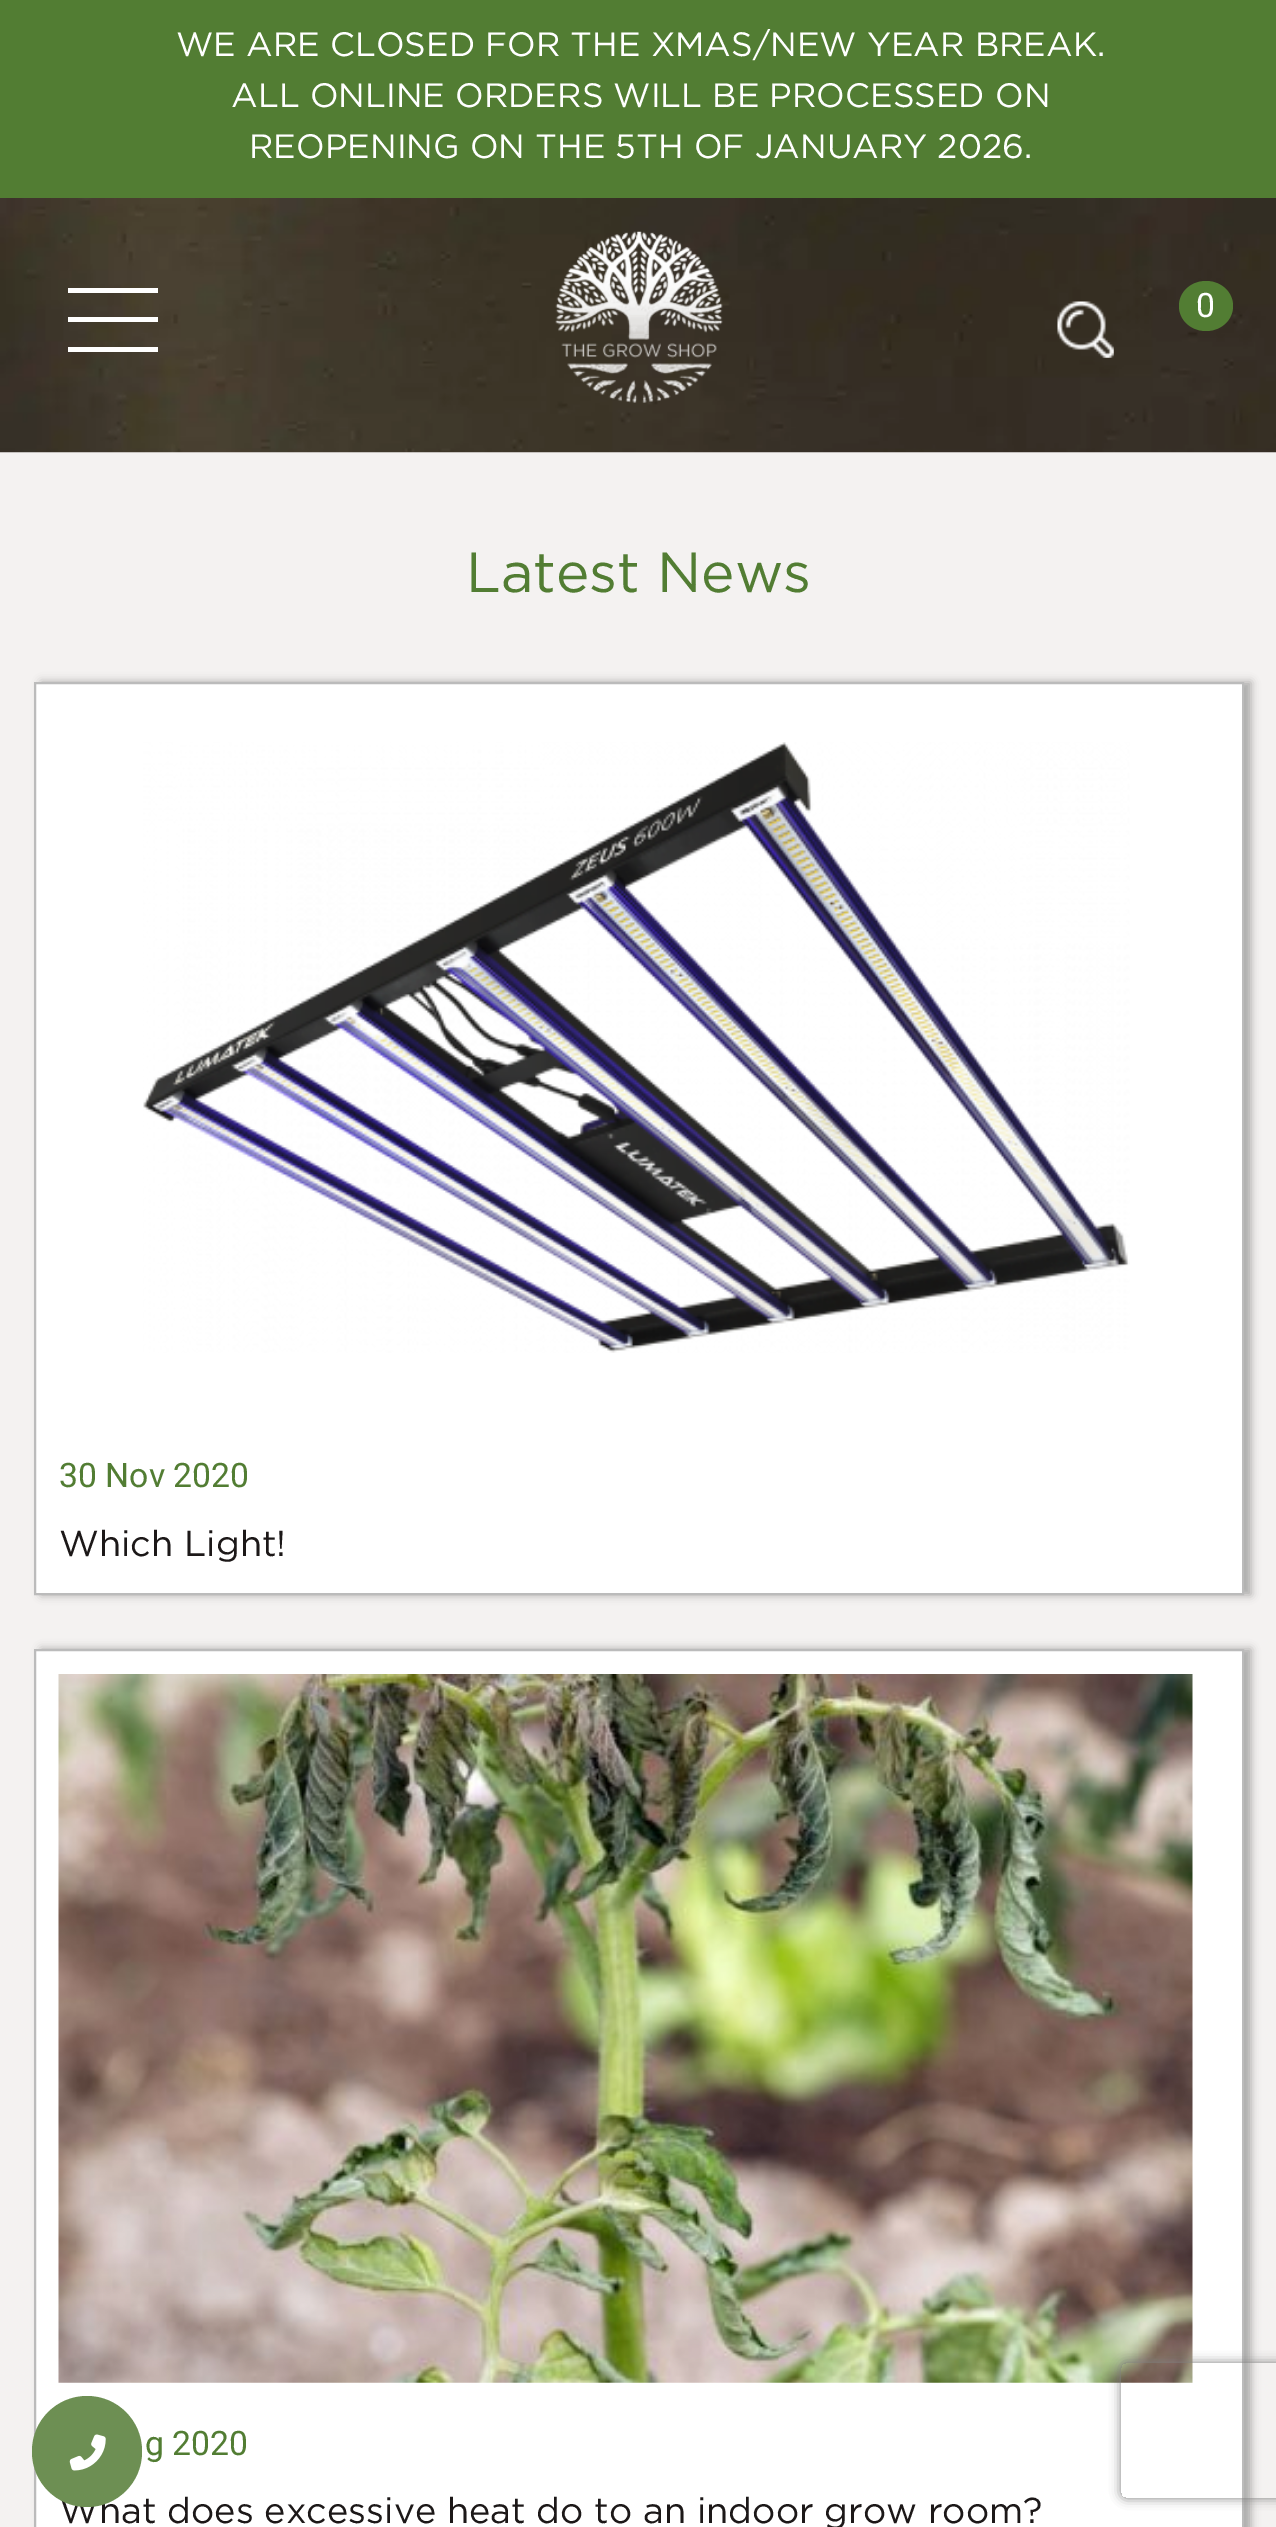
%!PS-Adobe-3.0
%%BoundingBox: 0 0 1276 2527
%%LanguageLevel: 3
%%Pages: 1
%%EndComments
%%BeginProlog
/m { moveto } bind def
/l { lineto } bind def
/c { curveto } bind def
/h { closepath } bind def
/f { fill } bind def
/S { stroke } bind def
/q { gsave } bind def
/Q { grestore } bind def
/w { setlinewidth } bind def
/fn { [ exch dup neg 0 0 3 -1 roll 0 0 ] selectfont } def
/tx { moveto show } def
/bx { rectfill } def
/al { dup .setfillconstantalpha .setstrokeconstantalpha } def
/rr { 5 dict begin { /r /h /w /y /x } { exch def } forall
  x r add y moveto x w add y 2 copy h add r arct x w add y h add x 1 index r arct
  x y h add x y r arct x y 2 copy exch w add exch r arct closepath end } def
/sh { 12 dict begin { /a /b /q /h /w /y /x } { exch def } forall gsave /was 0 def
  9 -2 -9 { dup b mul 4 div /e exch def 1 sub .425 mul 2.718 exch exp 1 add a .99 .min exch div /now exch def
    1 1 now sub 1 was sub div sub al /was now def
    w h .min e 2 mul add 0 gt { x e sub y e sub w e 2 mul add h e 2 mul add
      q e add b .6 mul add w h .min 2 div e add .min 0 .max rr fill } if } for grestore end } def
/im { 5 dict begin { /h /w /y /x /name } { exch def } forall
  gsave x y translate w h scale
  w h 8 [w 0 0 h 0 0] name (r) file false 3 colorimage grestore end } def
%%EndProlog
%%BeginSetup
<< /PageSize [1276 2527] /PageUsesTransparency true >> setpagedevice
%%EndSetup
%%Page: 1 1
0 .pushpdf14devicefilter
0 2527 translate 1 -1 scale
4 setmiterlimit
0.957 0.949 0.945 setrgbcolor
0 0 1276 2527 bx
0.322 0.49 0.2 setrgbcolor
0 0 1276 198 bx
/Gotham-Regular 33.75 fn
1 setgray
(WE ARE CLOSED FOR THE XMAS/NEW YEAR BREAK.) 176 56 tx
(ALL ONLINE ORDERS WILL BE PROCESSED ON) 231 107 tx
(REOPENING ON THE 5TH OF JANUARY 2026.) 249 158 tx
(image0.raw) 0 198 1276 255 im
68 317 90 5 bx
68 288 90 5 bx
68 347 90 5 bx
(image1.raw) 555 231 168 172 im
(image2.raw) 1057 301 57 57 im
0.322 0.49 0.2 setrgbcolor
1206 281 m 1221 281 1233 292 1233 306 c 1233 320 1221 331 1206 331 c 1191 331 1179 320 1179 306 c 1179 292 1191 281 1206 281 c h f
/Roboto-Regular 33.75 fn
1 setgray
(0) 1196 317 tx
/Gotham-Regular 56.25 fn
0.322 0.49 0.2 setrgbcolor
(Latest News) 466 592 tx
0 setgray
41 682 1210 913 0 4.5 0.3 sh
1 setgray
35 683 m 1243 683 l 1243 1594 l 35 1594 l h q f Q
0.733 setgray
2 w
S
(image3.raw) 143 742 987 611 im
/Roboto-Regular 33.75 fn
0.322 0.49 0.2 setrgbcolor
(30 Nov 2020) 59 1487 tx
/Gotham-Regular 36 fn
0.11 0.094 0.094 setrgbcolor
(Which Light!) 59 1556 tx
0 setgray
41 1649 1210 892 0 4.5 0.3 sh
1 setgray
35 1650 m 1243 1650 l 1243 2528 l 35 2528 l h q f Q
0.733 setgray
S
(image4.raw) 58 1674 1135 709 im
/Roboto-Regular 33.75 fn
0.322 0.49 0.2 setrgbcolor
(g 2020) 145 2455 tx
/Gotham-Regular 36 fn
0.11 0.094 0.094 setrgbcolor
(What does excessive heat do to an indoor grow room?) 59 2523 tx
q
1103 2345 m 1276 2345 l 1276 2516 l 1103 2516 l h 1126 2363 m 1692 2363 l 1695 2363 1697 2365 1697 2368 c 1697 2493 l 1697 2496 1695 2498 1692 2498 c 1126 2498 l 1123 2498 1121 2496 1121 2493 c 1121 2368 l 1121 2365 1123 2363 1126 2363 c h eoclip newpath
0.502 setgray
1121 2363 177 135 5 5.5 1 sh
Q
0.427 0.561 0.325 setrgbcolor
32 2396 110 111 55 rr f
(image5.raw) 69 2434 37 37 im
.poppdf14devicefilter showpage
%%EOF
